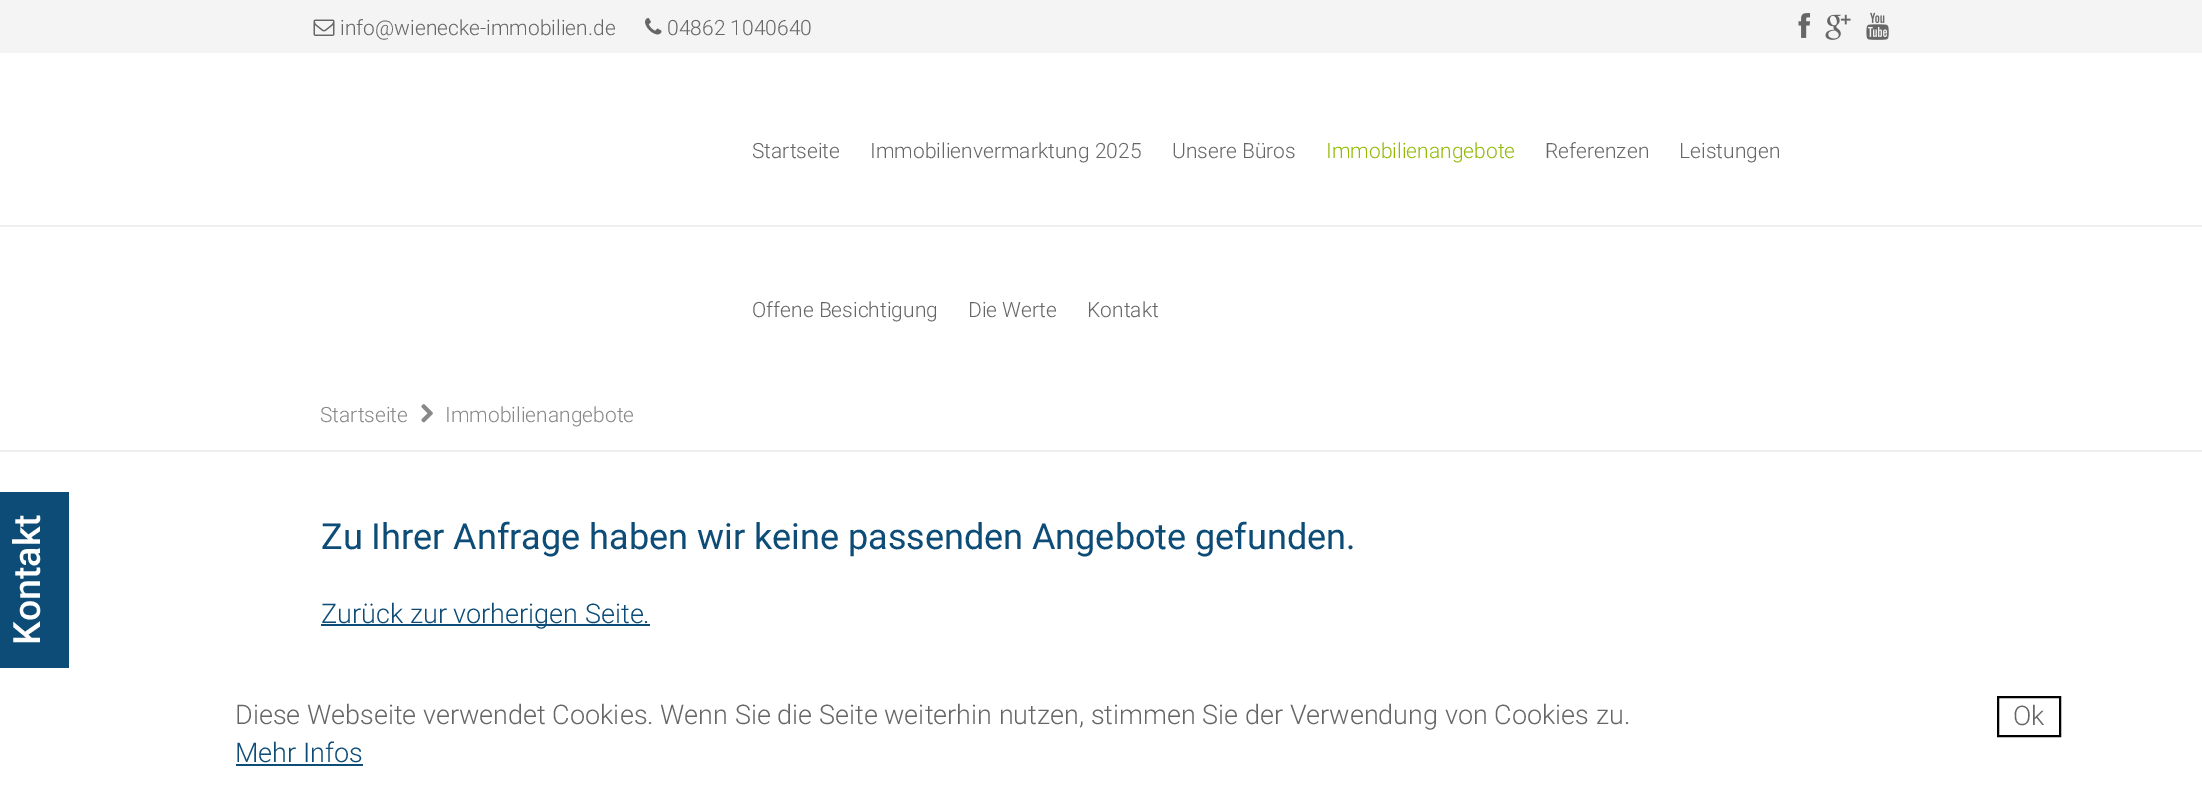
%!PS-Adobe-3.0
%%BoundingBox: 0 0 2202 786
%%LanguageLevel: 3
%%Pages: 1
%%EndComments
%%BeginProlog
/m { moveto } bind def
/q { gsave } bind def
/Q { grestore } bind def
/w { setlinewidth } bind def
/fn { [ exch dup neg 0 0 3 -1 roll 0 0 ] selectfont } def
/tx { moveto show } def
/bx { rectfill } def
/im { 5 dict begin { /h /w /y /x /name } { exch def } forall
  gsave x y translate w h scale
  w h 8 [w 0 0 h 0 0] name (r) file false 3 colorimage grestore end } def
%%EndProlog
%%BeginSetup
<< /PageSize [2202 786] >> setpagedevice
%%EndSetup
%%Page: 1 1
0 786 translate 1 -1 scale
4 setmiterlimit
1 setgray
0 0 2202 786 bx
0.957 setgray
0 0 2202 53 bx
(image0.raw) 313 19 22 17 im
/Roboto-Light 21 fn
0.4 setgray
(info@wienecke-immobilien.de) 340 35 tx
(image1.raw) 645 18 17 17 im
(04862 1040640) 667 35 tx
(image2.raw) 1798 13 13 25 im
(image3.raw) 1825 14 26 26 im
(image4.raw) 1866 12 23 28 im
0.937 setgray
0 225 2202 2 bx
0.4 setgray
(Startseite) 752 158 tx
(Immobilienvermarktung 2025) 870 158 tx
(Unsere Büros) 1172 158 tx
0.573 0.729 0.016 setrgbcolor
(Immobilienangebote) 1326 158 tx
0.4 setgray
(Referenzen) 1545 158 tx
(Leistungen) 1679 158 tx
(Offene Besichtigung) 752 317 tx
(Die Werte) 968 317 tx
(Kontakt) 1087 317 tx
0.937 setgray
0 450 2202 2 bx
0.533 setgray
(Startseite) 320 422 tx
(image5.raw) 421 404 12 19 im
(Immobilienangebote) 445 422 tx
0.047 0.298 0.467 setrgbcolor
0 492 69 176 bx
/Roboto-Medium 37.5 fn
1 setgray
q 40 645 translate -90 rotate 0 0 m (Kontakt) show Q
/Roboto-Regular 36 fn
0.047 0.298 0.467 setrgbcolor
(Zu Ihrer Anfrage haben wir keine passenden Angebote gefunden.) 321 549 tx
321 624 329 2 bx
/Roboto-Light 27 fn
(Zurück zur vorherigen Seite.) 321 623 tx
0.4 setgray
(Diese Webseite verwendet Cookies. Wenn Sie die Seite weiterhin nutzen, stimmen Sie der Verwendung von Cookies zu.) 235 724 tx
0.047 0.298 0.467 setrgbcolor
(Mehr Infos) 235 762 tx
236 764 127 2 bx
0 setgray
2 w
1998 697 62 39 rectstroke
0.4 setgray
(Ok) 2013 725 tx
showpage
%%EOF
